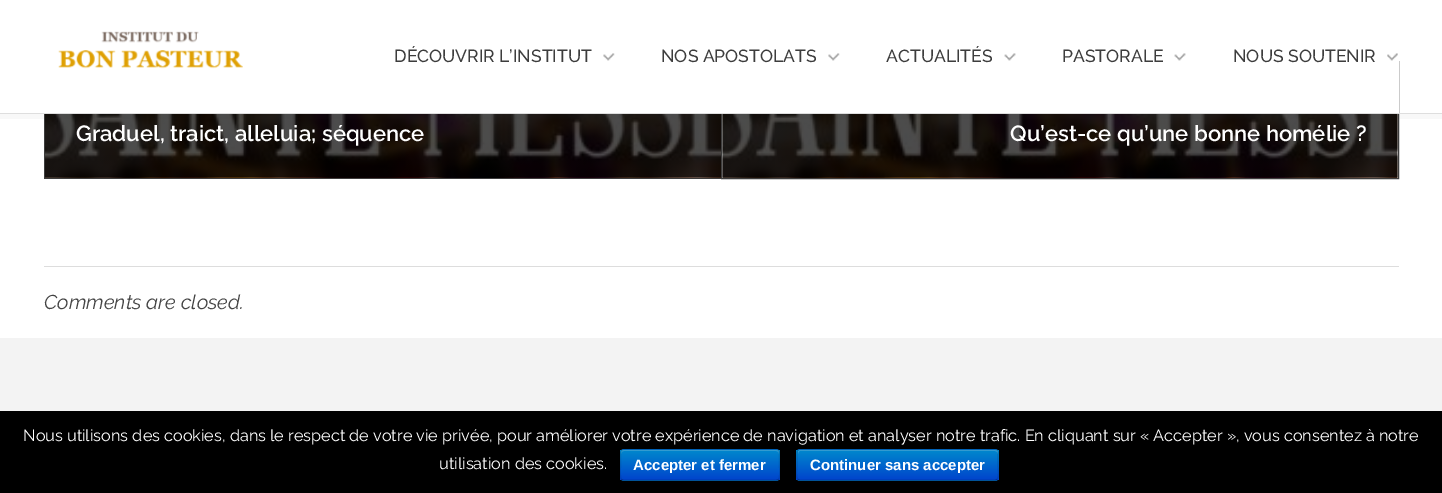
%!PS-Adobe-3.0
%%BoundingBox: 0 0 1442 493
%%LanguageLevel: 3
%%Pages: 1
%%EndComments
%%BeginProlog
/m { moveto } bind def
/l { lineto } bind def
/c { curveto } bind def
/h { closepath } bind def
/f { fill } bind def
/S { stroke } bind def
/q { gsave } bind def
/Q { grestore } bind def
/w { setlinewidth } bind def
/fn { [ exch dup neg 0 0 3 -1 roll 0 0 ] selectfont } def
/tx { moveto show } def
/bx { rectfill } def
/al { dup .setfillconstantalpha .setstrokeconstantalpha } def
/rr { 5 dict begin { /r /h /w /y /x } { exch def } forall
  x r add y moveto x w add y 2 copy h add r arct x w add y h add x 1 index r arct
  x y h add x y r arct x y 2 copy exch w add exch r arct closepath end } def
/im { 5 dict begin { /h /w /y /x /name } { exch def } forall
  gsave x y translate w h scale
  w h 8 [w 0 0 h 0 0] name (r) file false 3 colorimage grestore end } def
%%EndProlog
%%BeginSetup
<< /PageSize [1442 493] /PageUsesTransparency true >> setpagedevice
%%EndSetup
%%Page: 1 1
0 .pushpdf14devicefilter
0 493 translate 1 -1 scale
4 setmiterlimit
1 setgray
0 0 1442 493 bx
(image4.raw) 45 114 676 64 im
0.239 setgray
44 178 677 1 bx
44 114 1 65 bx
(image5.raw) 722 114 676 64 im
721.5 61.5 677 117 rectstroke
0.03 al
0.133 setgray
0 114 m 0 119 l 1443 119 l 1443 5 l 1442 5 l 1442 114 l h f
1 al
1 setgray
721 61 678 52 bx
0.871 setgray
0 113 1442 1 bx
(image0.raw) 58 31 185 38 im
/Raleway-Medium 17.5 fn
0.239 setgray
(DÉCOUVRIR L’INSTITUT) 394 62 tx
(image1.raw) 603 53 12 8 im
(NOS APOSTOLATS) 661 62 tx
(image1.raw) 828 53 12 8 im
(ACTUALITÉS) 886 62 tx
(image2.raw) 1004 53 12 8 im
(PASTORALE) 1062 62 tx
(image2.raw) 1174 53 12 8 im
(NOUS SOUTENIR) 1233 62 tx
(image3.raw) 1387 53 11 8 im
/Raleway-SemiBold 22 fn
1 setgray
(Graduel, traict, alleluia; séquence) 76 141 tx
(Qu’est-ce qu’une bonne homélie ?) 1010 141 tx
0.867 setgray
44 266 1355 1 bx
/Raleway-Italic 20 fn
0.267 setgray
(Comments are closed.) 44 309 tx
0.953 setgray
0 338 1442 73 bx
0 setgray
0 411 1442 82 bx
/Raleway-Regular 16.25 fn
1 setgray
(Nous utilisons des cookies, dans le respect de votre vie privée, pour améliorer votre expérience de navigation et analyser notre trafic. En cliquant sur « Accepter », vous consentez à notre) 23 441 tx
(utilisation des cookies.) 439 469 tx
0 0.427 0.8 setrgbcolor
620 449 160 32 4 rr f
q
620 449 160 32 4 rr clip newpath
q 620 450 m 780 450 l 780 480 l 620 480 l h clip newpath
<< /ShadingType 2 /ColorSpace /DeviceRGB /Coords [700 450 700 480] /Extend [true true] /Function << /FunctionType 2 /Domain [0 1] /C0 [0 0.533 0.8] /C1 [0 0.267 0.8] /N 1 >> >> shfill Q
Q
0.2 0.624 0.839 setrgbcolor
624 451 m 776 451 l 778 451 779 452 779 454 c 779 452 779 450 777 450 c 624 450 l 621 450 621 452 621 454 c 621 452 622 451 624 451 c h f
0.25 al
0 setgray
1.2 w
778.5 479.5 m 776 480.5 l 623.5 480.5 l 621.5 479.5 l S
0.1 al
621.5 479.5 m 619.5 477.5 620.5 468 620.5 465 c 620.5 456.5 l 620.5 454.5 620 449.5 624 449.5 c 776 449.5 l 780 449.5 779.5 454.5 779.5 456.5 c 779.5 465 l 779.5 468 780.5 477.5 778.5 479.5 c S
/LiberationSans-Bold 15 fn
1 al
1 setgray
(Accepter et fermer) 633 470 tx
0 0.427 0.8 setrgbcolor
796 449 203 32 4 rr f
q
796 449 203 32 4 rr clip newpath
q 796 450 m 999 450 l 999 480 l 796 480 l h clip newpath
<< /ShadingType 2 /ColorSpace /DeviceRGB /Coords [898 450 898 480] /Extend [true true] /Function << /FunctionType 2 /Domain [0 1] /C0 [0 0.533 0.8] /C1 [0 0.267 0.8] /N 1 >> >> shfill Q
Q
0.2 al
1 setgray
800 451 m 995 451 l 996 451 998 452 998 454 c 998 452 l 998 451 997 450 996 450 c 800 450 l 799 450 798 451 798 452 c 798 454 l 798 452 799 451 800 451 c h f
0.25 al
0 setgray
997 479.5 m 995 480.5 l 800 480.5 l 798 479.5 l S
0.1 al
798 479.5 m 795.5 477.5 797 468 797 465 c 797 456.5 l 797 454.5 796 449.5 800 449.5 c 995 449.5 l 999 449.5 998 454.5 998 456.5 c 998 465 l 998 468 999.5 477.5 997 479.5 c S
1 al
1 setgray
(Continuer sans accepter) 810 470 tx
.poppdf14devicefilter showpage
%%EOF
